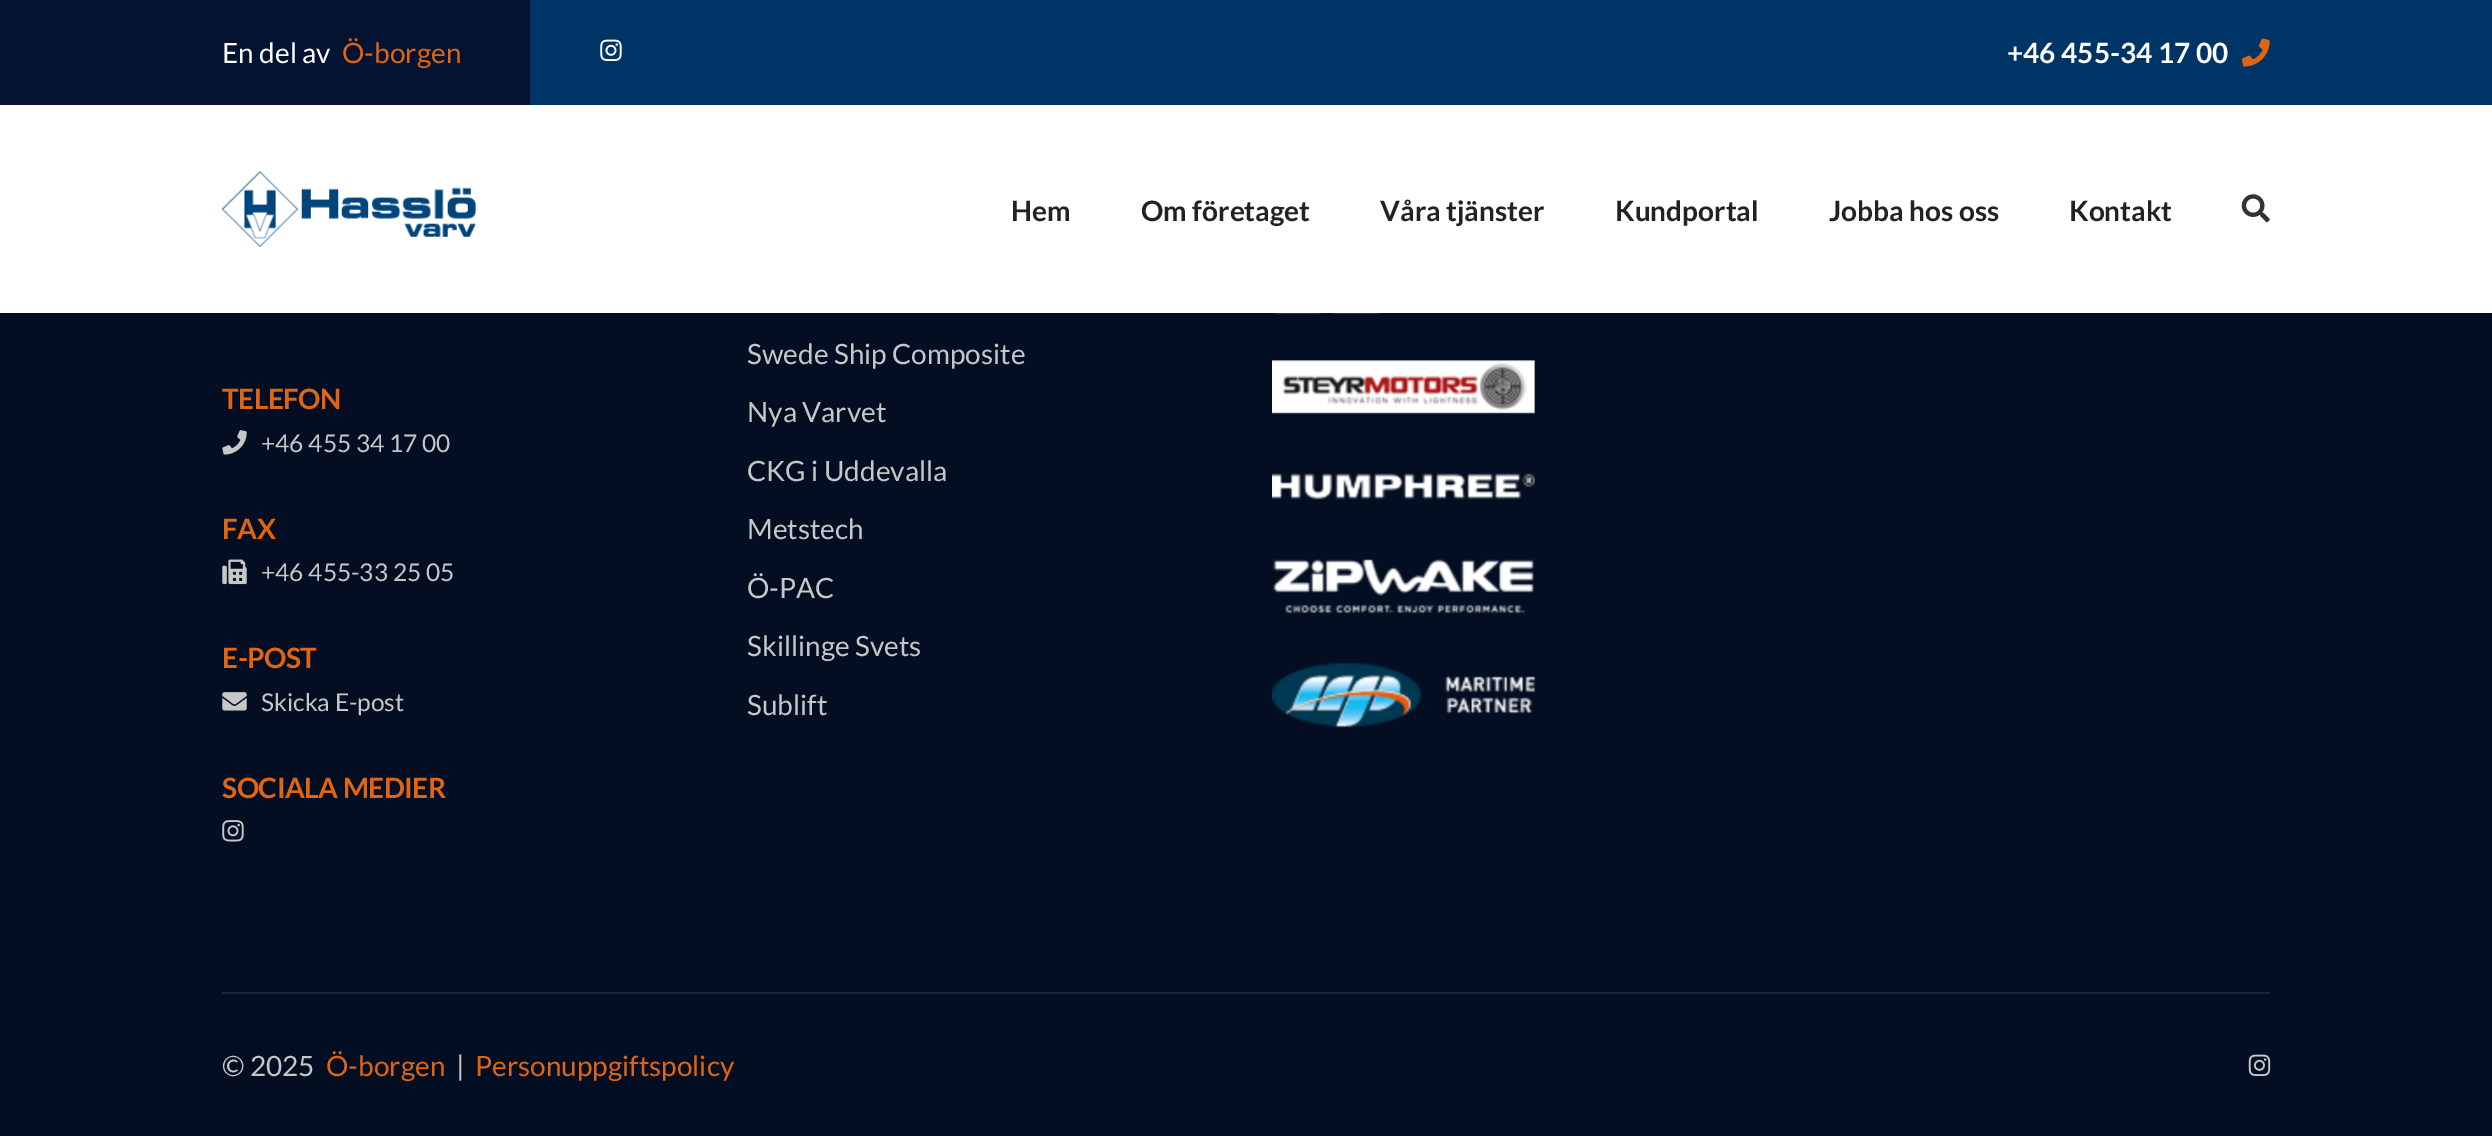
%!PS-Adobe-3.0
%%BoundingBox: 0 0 2492 1136
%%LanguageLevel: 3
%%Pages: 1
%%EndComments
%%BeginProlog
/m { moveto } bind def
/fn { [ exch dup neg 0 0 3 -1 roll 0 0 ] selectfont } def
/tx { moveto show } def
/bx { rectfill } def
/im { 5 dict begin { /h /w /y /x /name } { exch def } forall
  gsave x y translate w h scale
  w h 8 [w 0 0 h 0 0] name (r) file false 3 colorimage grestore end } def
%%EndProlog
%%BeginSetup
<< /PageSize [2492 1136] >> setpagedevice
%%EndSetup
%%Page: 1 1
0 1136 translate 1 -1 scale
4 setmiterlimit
0.012 0.055 0.133 setrgbcolor
0 0 2492 1136 bx
0 0.2 0.4 setrgbcolor
530 0 1962 105 bx
0.012 0.075 0.192 setrgbcolor
0 0 530 105 bx
/Lato-Regular 28 fn
1 setgray
(En del av) 222 63 tx
0.875 0.396 0.071 setrgbcolor
(Ö-borgen) 342 63 tx
(image0.raw) 600 39 22 22 im
/Lato-Bold 28 fn
1 setgray
(+46 455-34 17 00) 2007 63 tx
(image1.raw) 2241 38 29 29 im
0 105 2492 208 bx
(image2.raw) 222 171 254 76 im
0.133 setgray
(Hem) 1011 221 tx
(Om företaget) 1141 221 tx
(Våra tjänster) 1380 221 tx
(Kundportal) 1615 221 tx
(Jobba hos oss) 1829 221 tx
(Kontakt) 2069 221 tx
(image3.raw) 2241 194 29 29 im
0.875 0.396 0.071 setrgbcolor
222 409 m -0.5 0 (TELEFON) ashow
(image4.raw) 222 430 25 25 im
/Lato-Regular 24.5 fn
0.78 setgray
(+46 455 34 17 00) 261 452 tx
/Lato-Bold 28 fn
0.875 0.396 0.071 setrgbcolor
222 539 m -0.5 0 (FAX) ashow
(image5.raw) 222 559 25 26 im
/Lato-Regular 24.5 fn
0.78 setgray
(+46 455-33 25 05) 261 581 tx
/Lato-Bold 28 fn
0.875 0.396 0.071 setrgbcolor
222 668 m -0.5 0 (E-POST) ashow
(image6.raw) 222 692 25 19 im
/Lato-Regular 24.5 fn
0.78 setgray
(Skicka E-post) 261 711 tx
/Lato-Bold 28 fn
0.875 0.396 0.071 setrgbcolor
222 798 m -0.5 0 (SOCIALA MEDIER) ashow
(image7.raw) 222 820 22 22 im
/Lato-Regular 28 fn
0.78 setgray
(Swede Ship Composite) 747 364 tx
(Nya Varvet) 747 422 tx
(CKG i Uddevalla) 747 481 tx
(Metstech) 747 539 tx
(Ö-PAC) 747 598 tx
(Skillinge Svets) 747 656 tx
(Sublift) 747 715 tx
(image8.raw) 1273 313 108 1 im
(image9.raw) 1272 360 263 54 im
(image10.raw) 1272 473 263 27 im
(image11.raw) 1273 559 261 55 im
(image12.raw) 1272 662 263 66 im
0.11 0.149 0.22 setrgbcolor
222 992 2048 2 bx
0.78 setgray
(© 2025) 222 1076 tx
0.875 0.396 0.071 setrgbcolor
(Ö-borgen) 326 1076 tx
0.78 setgray
(|) 456 1076 tx
0.875 0.396 0.071 setrgbcolor
(Personuppgiftspolicy) 475 1076 tx
(image13.raw) 2248 1054 23 22 im
showpage
%%EOF
